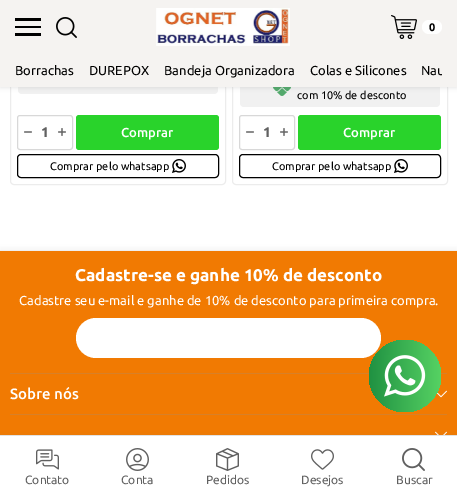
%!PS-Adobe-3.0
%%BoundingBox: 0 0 457 504
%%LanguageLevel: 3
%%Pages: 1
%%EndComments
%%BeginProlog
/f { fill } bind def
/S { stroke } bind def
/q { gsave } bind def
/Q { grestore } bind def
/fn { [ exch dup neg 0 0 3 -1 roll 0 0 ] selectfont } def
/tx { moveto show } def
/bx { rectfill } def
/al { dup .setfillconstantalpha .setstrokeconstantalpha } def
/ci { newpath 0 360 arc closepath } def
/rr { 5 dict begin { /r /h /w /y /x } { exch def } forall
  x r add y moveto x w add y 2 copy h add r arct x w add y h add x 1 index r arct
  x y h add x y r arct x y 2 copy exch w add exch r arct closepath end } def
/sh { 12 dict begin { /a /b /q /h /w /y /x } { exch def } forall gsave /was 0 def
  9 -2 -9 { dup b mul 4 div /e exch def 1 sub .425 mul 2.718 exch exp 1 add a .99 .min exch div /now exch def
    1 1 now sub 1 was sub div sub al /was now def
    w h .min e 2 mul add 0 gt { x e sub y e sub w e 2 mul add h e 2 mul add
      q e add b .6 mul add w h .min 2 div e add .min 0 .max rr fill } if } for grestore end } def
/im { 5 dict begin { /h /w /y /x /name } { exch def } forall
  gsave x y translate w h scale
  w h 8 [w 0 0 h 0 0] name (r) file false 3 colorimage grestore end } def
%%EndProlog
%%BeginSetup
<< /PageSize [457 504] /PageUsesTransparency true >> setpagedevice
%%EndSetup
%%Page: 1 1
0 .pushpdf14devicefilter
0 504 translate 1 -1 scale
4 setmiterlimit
1 setgray
0 0 457 504 bx
0.925 setgray
10.5 -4.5 215 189 3.5 rr S
0.945 setgray
18 54 200 40 4 rr f
0.925 setgray
232.5 -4.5 215 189 3.5 rr S
0.945 setgray
240 67 200 40 4 rr f
(image6.raw) 273 87 18 9 im
0.322 setgray
0 1 457 87 0 2 0.13 sh
0.961 0.953 0.945 setrgbcolor
0 0 457 87 bx
0 setgray
15 33 26 3 bx
15 26 26 2 bx
15 18 26 3 bx
(image0.raw) 56 17 21 21 im
(image1.raw) 156 8 134 38 im
(image2.raw) 391 15 26 24 im
1 setgray
422 20 20 14 7 rr f
/Ubuntu-Bold 11 fn
0 setgray
(0) 429 31 tx
/Ubuntu-Regular 13 fn
(Borrachas) 15 75 tx
(DUREPOX) 89 75 tx
(Bandeja Organizadora) 164 75 tx
(Colas e Silicones) 310 75 tx
q
15 55 427 23 rectclip
(Nau) 421 75 tx
Q
0.847 setgray
17.5 115.5 55 34 2.5 rr S
(image3.raw) 24 131 8 2 im
/Ubuntu-Bold 14 fn
0.38 setgray
(1) 41 137 tx
(image4.raw) 58 128 8 8 im
0.161 0.827 0.169 setrgbcolor
76 115 143 35 3 rr f
/Ubuntu-Medium 13 fn
1 setgray
(Comprar) 121 137 tx
0 setgray
17.5 154.5 201 23 3.5 rr S
/Ubuntu-Regular 11 fn
(Comprar pelo whatsapp) 50 170 tx
(image5.raw) 172 159 14 14 im
(com 10% de desconto) 297 99 tx
0.847 setgray
239.5 115.5 55 34 2.5 rr S
(image3.raw) 246 131 8 2 im
/Ubuntu-Bold 14 fn
0.38 setgray
(1) 263 137 tx
(image4.raw) 280 128 8 8 im
0.161 0.827 0.169 setrgbcolor
298 115 143 35 3 rr f
/Ubuntu-Medium 13 fn
1 setgray
(Comprar) 343 137 tx
0 setgray
239.5 154.5 201 23 3.5 rr S
/Ubuntu-Regular 11 fn
(Comprar pelo whatsapp) 272 170 tx
(image5.raw) 394 159 14 14 im
0.769 setgray
0 248 457 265 0 3 0.18 sh
0.937 setgray
0 250 457 1 bx
0.945 0.478 0.008 setrgbcolor
0 251 457 184 bx
/Ubuntu-Bold 17 fn
1 setgray
(Cadastre-se e ganhe 10% de desconto) 75 281 tx
/Ubuntu-Regular 13 fn
(Cadastre seu e-mail e ganhe de 10% de desconto para primeira compra.) 19 305 tx
76 318 305 40 20 rr f
0.847 0.502 0.153 setrgbcolor
10 373 437 1 bx
/Ubuntu-Medium 15 fn
1 setgray
(Sobre nós) 10 399 tx
(image7.raw) 436 390 11 8 im
0.847 0.502 0.153 setrgbcolor
10 414 437 1 bx
(image8.raw) 435 431 12 4 im
q 405 376 36 ci clip newpath
<< /ShadingType 2 /ColorSpace /DeviceRGB /Coords [369 376 441 376] /Extend [true true] /Function << /FunctionType 2 /Domain [0 1] /C0 [0.125 0.569 0.259] /C1 [0.337 0.824 0.388] /N 1 >> >> shfill Q
(image9.raw) 384 355 42 42 im
0.322 setgray
0 435 457 69 0 2 0.08 sh
1 setgray
0 436 457 68 bx
0.886 setgray
0 435 457 1 bx
(image10.raw) 36 449 23 21 im
/Ubuntu-Regular 12 fn
0.38 setgray
(Contato) 25 484 tx
(image11.raw) 126 448 23 23 im
(Conta) 121 484 tx
(image12.raw) 216 448 23 23 im
(Pedidos) 206 484 tx
(image13.raw) 311 449 23 21 im
(Desejos) 301 484 tx
(image14.raw) 402 448 23 23 im
(Buscar) 396 484 tx
.poppdf14devicefilter showpage
%%EOF
